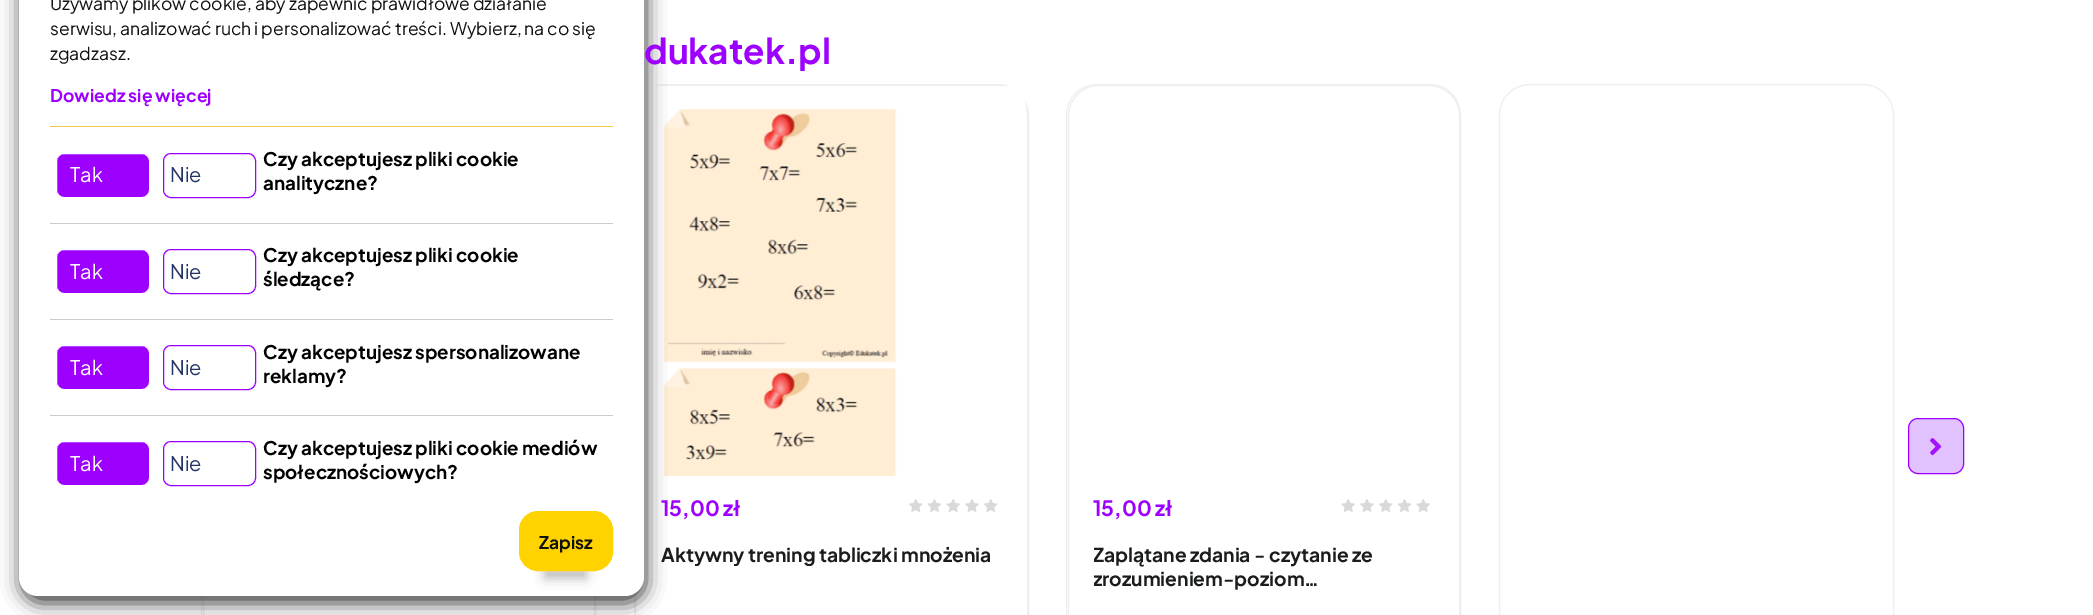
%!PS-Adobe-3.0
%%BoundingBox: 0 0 2093 615
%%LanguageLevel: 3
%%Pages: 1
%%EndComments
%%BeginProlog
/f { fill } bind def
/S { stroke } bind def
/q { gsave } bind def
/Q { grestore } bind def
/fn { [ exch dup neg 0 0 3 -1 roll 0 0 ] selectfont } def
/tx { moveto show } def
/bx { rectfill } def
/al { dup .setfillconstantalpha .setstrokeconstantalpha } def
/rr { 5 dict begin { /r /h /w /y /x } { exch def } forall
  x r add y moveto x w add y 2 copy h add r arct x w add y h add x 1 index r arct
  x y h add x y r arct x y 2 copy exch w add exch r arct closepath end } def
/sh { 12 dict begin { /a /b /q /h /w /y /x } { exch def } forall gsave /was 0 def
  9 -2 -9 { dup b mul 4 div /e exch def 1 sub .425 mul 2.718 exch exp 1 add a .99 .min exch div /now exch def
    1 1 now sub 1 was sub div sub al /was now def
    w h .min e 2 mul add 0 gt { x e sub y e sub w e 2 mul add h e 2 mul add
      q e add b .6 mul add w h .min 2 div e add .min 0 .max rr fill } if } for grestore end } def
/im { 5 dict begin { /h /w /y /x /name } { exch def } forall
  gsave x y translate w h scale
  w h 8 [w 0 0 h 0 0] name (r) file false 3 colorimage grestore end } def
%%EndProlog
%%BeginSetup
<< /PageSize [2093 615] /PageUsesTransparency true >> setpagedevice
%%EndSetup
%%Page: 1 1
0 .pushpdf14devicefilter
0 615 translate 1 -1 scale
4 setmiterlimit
1 setgray
0 0 2093 615 bx
0.933 setgray
201.5 84.5 394 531 rectstroke
203.5 85.5 391 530 rectstroke
634.5 84.5 394 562 30.5 rr S
1 setgray
635.5 85.5 392 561 30.5 rr q f Q
0.933 setgray
S
(image1.raw) 644 86 382 390 im
0.224 setgray
21 -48 625 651 19 9.5 1 sh
1 setgray
19 -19 625 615 19 rr f
/PlusJakartaSans-Regular 17.5 fn
0.067 setgray
(Używamy plików cookie, aby zapewnić prawidłowe działanie) 50 10 tx
(serwisu, analizować ruch i personalizować treści. Wybierz, na co się) 50 35 tx
(zgadzasz.) 50 60 tx
/PlusJakartaSans-Bold 17.5 fn
0.616 0 1 setrgbcolor
(Dowiedz się więcej) 50 102 tx
0.949 0.788 0.298 setrgbcolor
50 126 563 1 bx
0.8 setgray
50 223 563 1 bx
0.616 0 1 setrgbcolor
56.5 153.5 93 44 7.5 rr q f Q
1 setgray
S
/PlusJakartaSans-Regular 20 fn
(Tak) 70 182 tx
0.616 0 1 setrgbcolor
163.5 153.5 92 44 7.5 rr S
0.133 0.204 0.384 setrgbcolor
(Nie) 170 182 tx
/PlusJakartaSans-Bold 18.75 fn
0 setgray
(Czy akceptujesz pliki cookie) 263 166 tx
(analityczne?) 263 190 tx
0.8 setgray
50 319 563 1 bx
0.616 0 1 setrgbcolor
56.5 249.5 93 44 7.5 rr q f Q
1 setgray
S
/PlusJakartaSans-Regular 20 fn
(Tak) 70 279 tx
0.616 0 1 setrgbcolor
163.5 249.5 92 44 7.5 rr S
0.133 0.204 0.384 setrgbcolor
(Nie) 170 279 tx
/PlusJakartaSans-Bold 18.75 fn
0 setgray
(Czy akceptujesz pliki cookie) 263 262 tx
(śledzące?) 263 286 tx
0.8 setgray
50 415 563 1 bx
0.616 0 1 setrgbcolor
56.5 345.5 93 44 7.5 rr q f Q
1 setgray
S
/PlusJakartaSans-Regular 20 fn
(Tak) 70 375 tx
0.616 0 1 setrgbcolor
163.5 345.5 92 44 7.5 rr S
0.133 0.204 0.384 setrgbcolor
(Nie) 170 375 tx
/PlusJakartaSans-Bold 18.75 fn
0 setgray
(Czy akceptujesz spersonalizowane) 263 359 tx
(reklamy?) 263 383 tx
0.616 0 1 setrgbcolor
56.5 441.5 93 44 7.5 rr q f Q
1 setgray
S
/PlusJakartaSans-Regular 20 fn
(Tak) 70 471 tx
0.616 0 1 setrgbcolor
163.5 441.5 92 44 7.5 rr S
0.133 0.204 0.384 setrgbcolor
(Nie) 170 471 tx
/PlusJakartaSans-Bold 18.75 fn
0 setgray
(Czy akceptujesz pliki cookie mediów) 263 455 tx
(społecznościowych?) 263 479 tx
545 570 41 8 0 6 0.28 sh
1 0.827 0 setrgbcolor
519.5 511.5 93 59 18.5 rr q f Q
S
/PlusJakartaSans-Bold 17.5 fn
0.067 setgray
(Zapisz) 539 549 tx
/PlusJakartaSans-Bold 35 fn
0.616 0 1 setrgbcolor
(dukatek.pl) 644 64 tx
0.882 0.761 1 setrgbcolor
1908.5 418.5 55 55 9.5 rr q f Q
0.616 0 1 setrgbcolor
S
(image0.raw) 1930 438 12 18 im
/PlusJakartaSans-Bold 21 fn
(15,00 zł) 661 516 tx
(image2.raw) 909 499 14 13 im
(image3.raw) 927 499 14 13 im
(image4.raw) 946 499 14 13 im
(image5.raw) 965 499 14 13 im
(image2.raw) 984 499 14 13 im
q
661 541 340 25 rectclip
/PlusJakartaSans-Bold 19.25 fn
0.106 0.11 0.114 setrgbcolor
(Aktywny trening tabliczki mnożenia) 661 562 tx
Q
0.933 setgray
1066.5 84.5 394 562 30.5 rr S
1 setgray
1068.5 85.5 391 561 30.5 rr q f Q
0.933 setgray
S
0.616 0 1 setrgbcolor
(15,00 zł) 1093 516 tx
(image4.raw) 1341 499 14 13 im
(image5.raw) 1360 499 14 13 im
(image2.raw) 1379 499 14 13 im
(image3.raw) 1397 499 14 13 im
(image4.raw) 1416 499 14 13 im
q
1094 541 340 49 rectclip
/PlusJakartaSans-Bold 19.25 fn
0.106 0.11 0.114 setrgbcolor
(Zaplątane zdania - czytanie ze) 1093 562 tx
(zrozumieniem-poziom…) 1093 586 tx
Q
0.933 setgray
1499.5 84.5 394 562 30.5 rr S
.poppdf14devicefilter showpage
%%EOF
